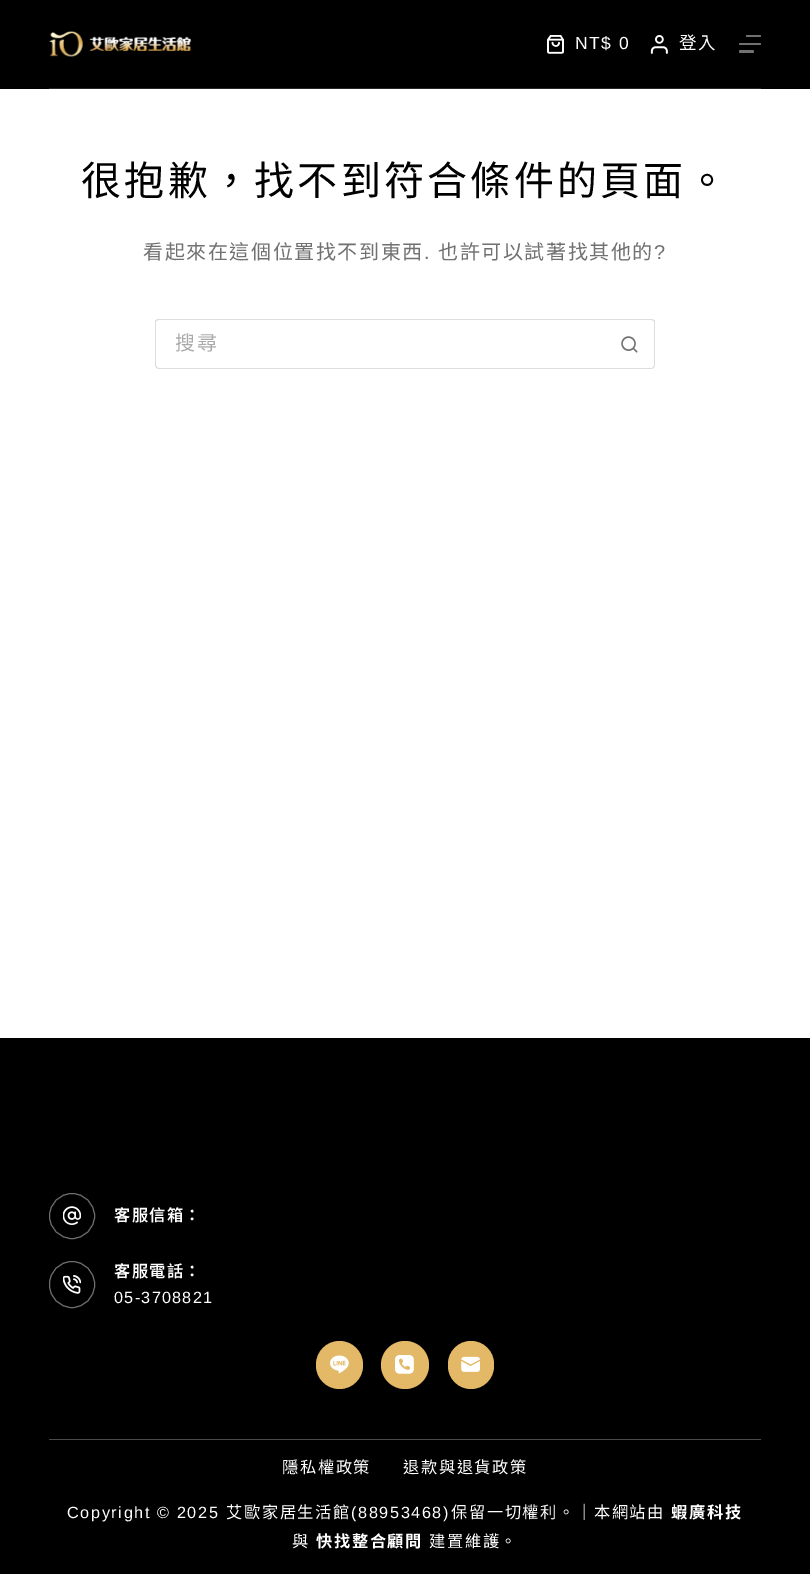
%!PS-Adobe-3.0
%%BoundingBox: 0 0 810 1574
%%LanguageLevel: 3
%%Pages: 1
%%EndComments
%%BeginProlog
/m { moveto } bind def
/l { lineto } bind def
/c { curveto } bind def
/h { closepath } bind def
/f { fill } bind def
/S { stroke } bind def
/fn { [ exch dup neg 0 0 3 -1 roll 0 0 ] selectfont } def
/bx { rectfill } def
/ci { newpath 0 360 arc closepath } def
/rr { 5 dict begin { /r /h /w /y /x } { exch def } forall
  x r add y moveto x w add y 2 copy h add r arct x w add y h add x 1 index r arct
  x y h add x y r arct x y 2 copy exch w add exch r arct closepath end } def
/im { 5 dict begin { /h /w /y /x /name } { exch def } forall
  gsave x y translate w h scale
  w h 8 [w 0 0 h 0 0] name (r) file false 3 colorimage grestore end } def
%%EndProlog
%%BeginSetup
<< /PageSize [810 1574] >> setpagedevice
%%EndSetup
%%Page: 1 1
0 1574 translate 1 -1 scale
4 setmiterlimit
1 setgray
0 0 810 1574 bx
0 setgray
0 0 810 89 bx
0.157 setgray
49 88 712 1 bx
(image0.raw) 49 31 143 26 im
(image1.raw) 547 35 17 19 im
/LiberationSans-Regular 17.5 fn
1 setgray
575 49 m 1.5 0 (NT$ 0) ashow
(image2.raw) 650 35 18 19 im
/NotoSansCJKTC-Regular 17.5 fn
679 49 m 1.5 0 (登入) ashow
0.447 0.443 0.443 setrgbcolor
746 35 15 2 1 rr f
739 43 22 2 1 rr f
739 50 15 3 1.5 rr f
/NotoSansCJKTC-Regular 40 fn
0 setgray
81 195 m 3.25 0 (很抱歉，找不到符合條件的頁面。) ashow
/NotoSansCJKTC-Regular 20 fn
0.447 0.443 0.443 setrgbcolor
143 259 m 1.6 0 (看起來在這個位置找不到東西) ashow
/LiberationSans-Regular 20 fn
424 259 m 1.6 0 (.) ashow
/NotoSansCJKTC-Regular 20 fn
438 259 m 1.6 0 (也許可以試著找其他的) ashow
/LiberationSans-Regular 20 fn
654 259 m 1.6 0 (?) ashow
0.867 setgray
159 319 m 605 319 l 605 369 l 159 369 l 157 369 155 367 155 365 c 155 322 l 155 320 157 319 159 319 c h 159 320 m 605 320 l 605 368 l 159 368 l 157 368 156 366 156 365 c 156 322 l 156 321 157 320 159 320 c h eofill
/NotoSansCJKTC-Regular 20 fn
0.667 setgray
175 350 m 1.6 0 (搜尋) ashow
0.867 setgray
605 319 m 651 319 l 653 319 655 320 655 322 c 655 365 l 655 367 653 369 651 369 c 605 369 l h 605 320 m 651 320 l 653 320 654 321 654 322 c 654 365 l 654 366 653 368 651 368 c 605 368 l h eofill
(image3.raw) 621 336 17 17 im
0 setgray
0 1038 810 536 bx
0.427 0.435 0.447 setrgbcolor
72 1216 22.5 ci S
(image4.raw) 63 1206 18 19 im
/NotoSansTC-SemiBold 16.25 fn
1 setgray
114 1221 m 1.25 0 (客服信箱：) ashow
0.427 0.435 0.447 setrgbcolor
49.5 1261.5 45 46 22.5 rr S
(image5.raw) 63 1275 18 19 im
1 setgray
114 1277 m 1.25 0 (客服電話：) ashow
/LiberationSans-Regular 16.25 fn
114 1303 m 1.25 0 (05-3708821) ashow
0.89 0.722 0.404 setrgbcolor
316 1341 47 48 23.5 rr f
(image6.raw) 330 1355 19 19 im
405 1365 24 ci f
(image7.raw) 395 1355 19 19 im
448 1341 46 48 23 rr f
(image8.raw) 461 1356 19 16 im
0.29 setgray
49 1439 712 1 bx
/NotoSansCJKTC-Regular 16.25 fn
1 setgray
282 1473 m 1.6 0 (隱私權政策) ashow
403 1473 m 1.6 0 (退款與退貨政策) ashow
/LiberationSans-Regular 16.25 fn
67 1518 m 1.6 0 (Copyright © 2025) ashow
/NotoSansCJKTC-Regular 16.25 fn
226 1518 m 1.6 0 (艾歐家居生活館) ashow
/LiberationSans-Regular 16.25 fn
351 1518 m 1.6 0 (\(88953468\)) ashow
/NotoSansCJKTC-Regular 16.25 fn
451 1518 m 1.6 0 (保留一切權利。｜本網站由) ashow
/NotoSansTC-Bold 16.25 fn
671 1518 m 1.6 0 (蝦廣科技) ashow
/NotoSansCJKTC-Regular 16.25 fn
292 1547 m 1.6 0 (與) ashow
/NotoSansTC-Bold 16.25 fn
316 1547 m 1.6 0 (快找整合顧問) ashow
/NotoSansCJKTC-Regular 16.25 fn
429 1547 m 1.6 0 (建置維護。) ashow
showpage
%%EOF
